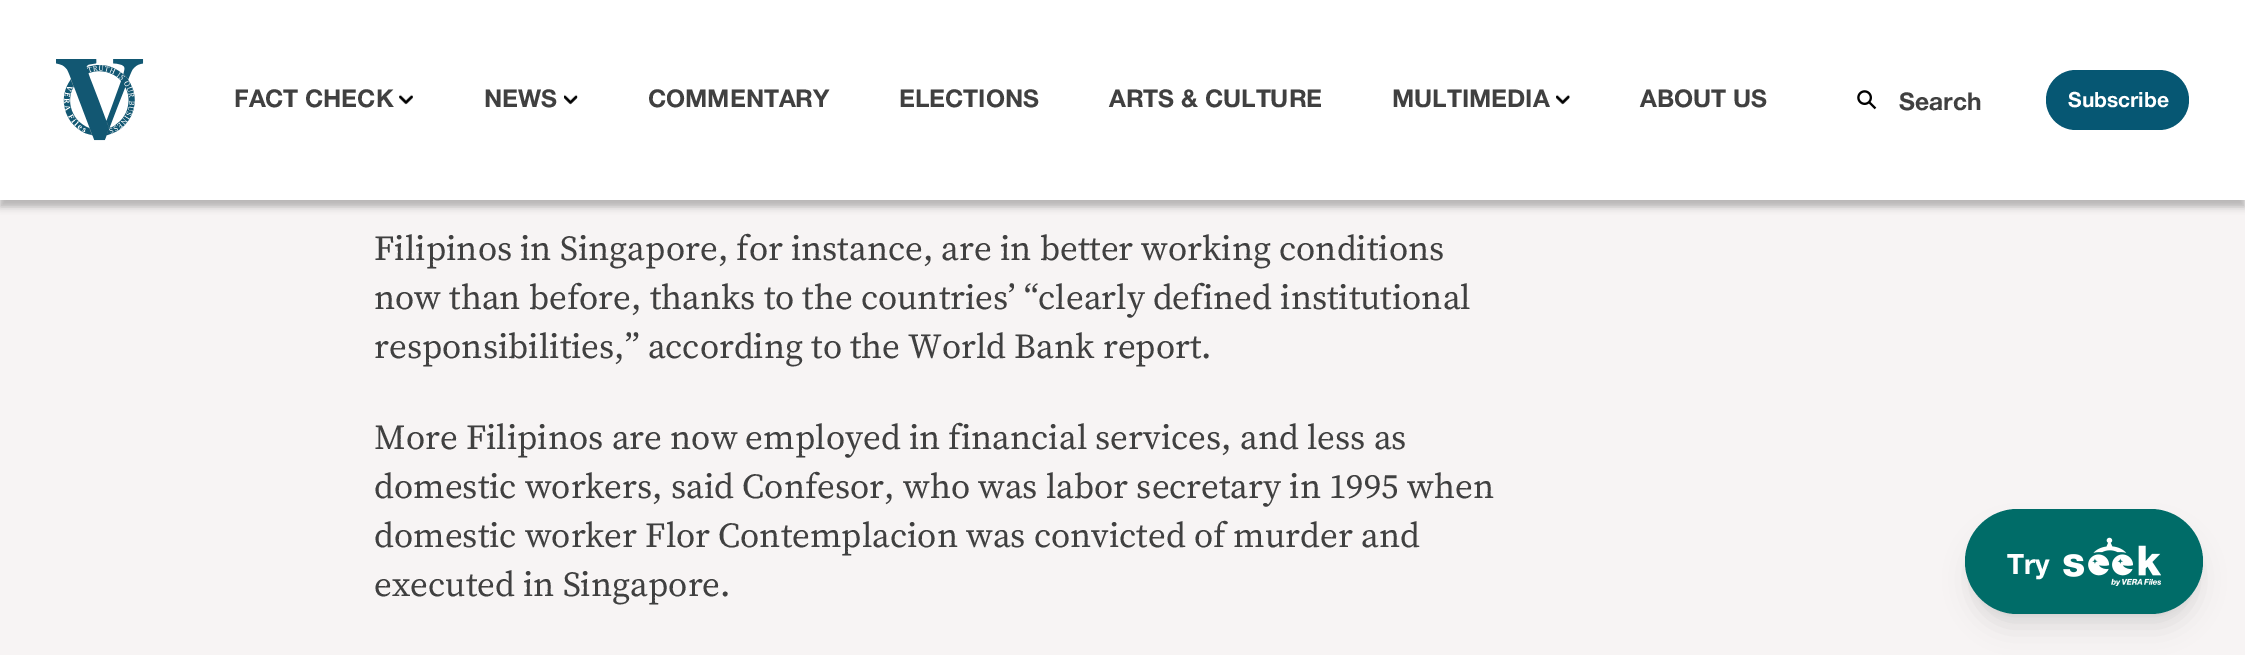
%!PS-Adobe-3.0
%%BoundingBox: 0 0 2245 655
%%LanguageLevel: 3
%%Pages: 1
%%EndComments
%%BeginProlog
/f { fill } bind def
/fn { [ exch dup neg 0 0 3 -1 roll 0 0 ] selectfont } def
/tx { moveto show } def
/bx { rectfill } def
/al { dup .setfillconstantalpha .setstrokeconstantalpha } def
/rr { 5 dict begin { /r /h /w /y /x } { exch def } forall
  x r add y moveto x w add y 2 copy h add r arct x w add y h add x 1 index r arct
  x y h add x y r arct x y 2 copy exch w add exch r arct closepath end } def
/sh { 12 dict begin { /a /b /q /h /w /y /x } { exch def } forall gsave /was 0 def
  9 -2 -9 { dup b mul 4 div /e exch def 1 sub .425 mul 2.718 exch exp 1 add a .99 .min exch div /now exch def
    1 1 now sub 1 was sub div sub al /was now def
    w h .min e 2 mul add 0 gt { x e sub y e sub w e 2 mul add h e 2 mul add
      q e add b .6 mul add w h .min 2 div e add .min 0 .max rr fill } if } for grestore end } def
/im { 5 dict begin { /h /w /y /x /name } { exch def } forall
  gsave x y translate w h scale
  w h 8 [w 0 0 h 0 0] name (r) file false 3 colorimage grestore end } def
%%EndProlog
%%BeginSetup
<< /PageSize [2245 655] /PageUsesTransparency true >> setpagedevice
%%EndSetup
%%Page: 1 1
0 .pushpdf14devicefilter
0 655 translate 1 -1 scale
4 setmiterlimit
0.969 0.957 0.957 setrgbcolor
0 0 2245 655 bx
0 setgray
0 7 2245 200 0 3.5 0.25 sh
1 setgray
0 0 2245 200 bx
(image0.raw) 56 59 88 82 im
/HelveticaNeue-Bold 24.5 fn
0.251 setgray
(FACT CHECK) 234 107 tx
(image1.raw) 399 94 14 11 im
(NEWS) 484 107 tx
(image2.raw) 564 94 14 11 im
(COMMENTARY) 648 107 tx
(ELECTIONS) 899 107 tx
(ARTS & CULTURE) 1109 107 tx
(MULTIMEDIA) 1392 107 tx
(image3.raw) 1556 94 14 11 im
(ABOUT US) 1640 107 tx
(image4.raw) 1857 90 20 20 im
(Search) 1899 110 tx
0.024 0.341 0.451 setrgbcolor
2046 70 143 60 30 rr f
/HelveticaNeue-Bold 21 fn
1 setgray
(Subscribe) 2068 107 tx
/SourceSerif4-Regular 35 fn
0.251 setgray
(Filipinos in Singapore, for instance, are in better working conditions) 374 260 tx
(now than before, thanks to the countries’ “clearly defined institutional) 374 309 tx
(responsibilities,” according to the World Bank report.) 374 358 tx
(More Filipinos are now employed in financial services, and less as) 374 449 tx
(domestic workers, said Confesor, who was labor secretary in 1995 when) 374 498 tx
(domestic worker Flor Contemplacion was convicted of murder and) 374 547 tx
(executed in Singapore.) 374 596 tx
0 setgray
1972 523 224 91 45.5 5 0.1 sh
1971 532 227 95 47.5 13 0.1 sh
0 0.424 0.408 setrgbcolor
1965 509 238 105 52.5 rr f
/HelveticaNeue-Bold 28 fn
1 setgray
(Try) 2007 574 tx
(image5.raw) 2063 537 98 49 im
.poppdf14devicefilter showpage
%%EOF
